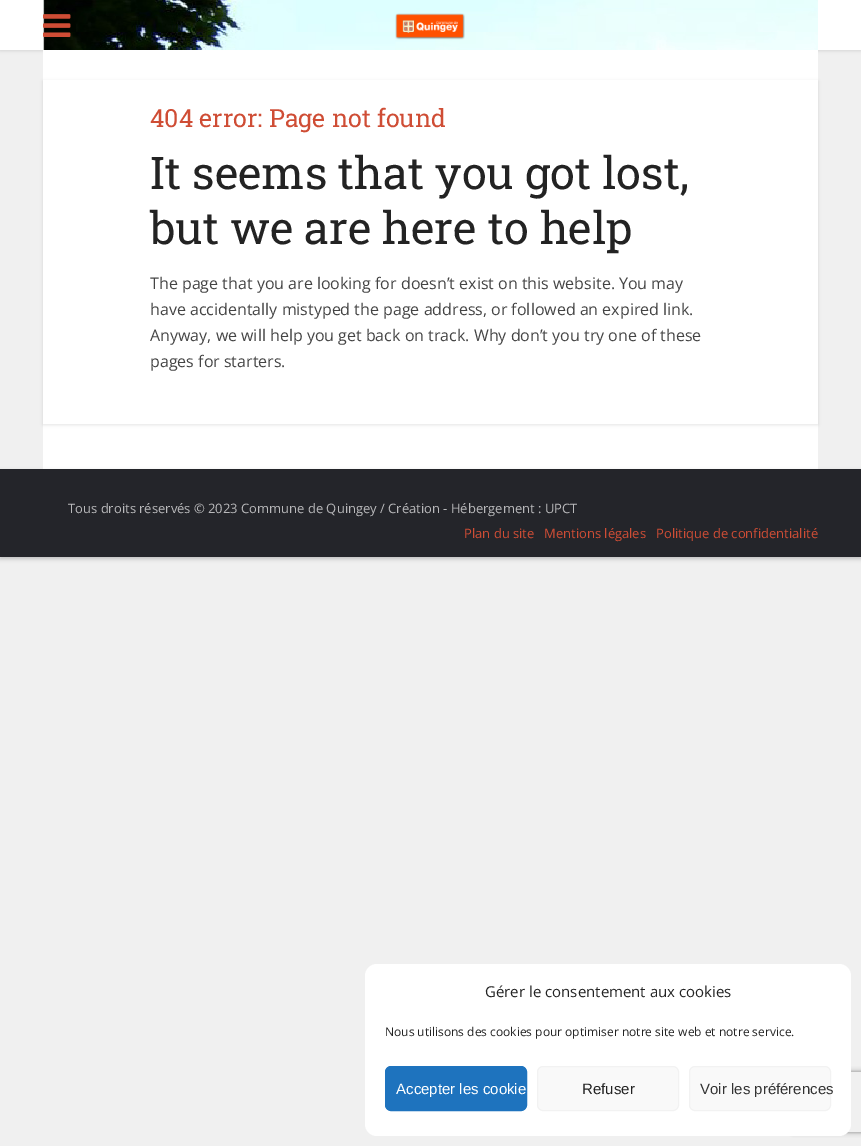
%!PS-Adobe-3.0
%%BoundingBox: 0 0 861 1146
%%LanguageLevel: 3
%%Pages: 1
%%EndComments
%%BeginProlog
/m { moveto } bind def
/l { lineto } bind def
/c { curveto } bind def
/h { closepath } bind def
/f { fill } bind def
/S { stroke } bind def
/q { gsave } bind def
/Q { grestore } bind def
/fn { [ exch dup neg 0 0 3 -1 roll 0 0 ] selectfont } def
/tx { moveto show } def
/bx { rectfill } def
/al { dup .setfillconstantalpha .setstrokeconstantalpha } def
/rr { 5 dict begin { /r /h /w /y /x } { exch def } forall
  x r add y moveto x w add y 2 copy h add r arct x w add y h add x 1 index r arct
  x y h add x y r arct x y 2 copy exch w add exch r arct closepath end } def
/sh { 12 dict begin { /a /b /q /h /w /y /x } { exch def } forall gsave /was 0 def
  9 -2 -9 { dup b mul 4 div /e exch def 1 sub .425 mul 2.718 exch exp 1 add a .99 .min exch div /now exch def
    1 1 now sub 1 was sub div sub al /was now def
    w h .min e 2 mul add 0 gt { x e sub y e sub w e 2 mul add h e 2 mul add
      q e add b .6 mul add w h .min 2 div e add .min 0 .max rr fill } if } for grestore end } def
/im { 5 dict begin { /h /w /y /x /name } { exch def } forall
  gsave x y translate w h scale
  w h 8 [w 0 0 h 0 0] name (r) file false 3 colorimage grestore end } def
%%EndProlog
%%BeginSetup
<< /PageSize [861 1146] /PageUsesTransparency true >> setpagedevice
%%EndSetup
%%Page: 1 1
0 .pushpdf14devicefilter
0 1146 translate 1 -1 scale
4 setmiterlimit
0.941 setgray
0 0 861 1146 bx
0 setgray
0 1 861 50 0 1.5 0.1 sh
1 setgray
0 0 861 50 bx
(image0.raw) 43 0 775 50 im
(image1.raw) 43 14 28 23 im
(image2.raw) 395 13 70 27 im
43 50 775 419 bx
q
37 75 m 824 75 l 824 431 l 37 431 l h 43 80 m 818 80 l 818 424 l 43 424 l h eoclip newpath
0 setgray
43 81 775 344 0 1.5 0.1 sh
Q
/RobotoSlab-Regular 25 fn
0.812 0.302 0.208 setrgbcolor
(404 error: Page not found) 150 127 tx
/RobotoSlab-Regular 45 fn
0.137 setgray
(It seems that you got lost,) 150 189 tx
(but we are here to help) 150 244 tx
/OpenSans-Regular 16 fn
0.267 setgray
(The page that you are looking for doesn’t exist on this website. You may) 150 289 tx
(have accidentally mistyped the page address, or followed an expired link.) 150 315 tx
(Anyway, we will help you get back on track. Why don’t you try one of these) 150 341 tx
(pages for starters.) 150 367 tx
0 setgray
0 471 861 88 0 2 0.2 sh
0.141 0.145 0.165 setrgbcolor
0 469 861 88 bx
/OpenSans-Regular 13 fn
0.725 0.725 0.733 setrgbcolor
(Tous droits réservés © 2023 Commune de Quingey / Création - Hébergement : UPCT) 68 513 tx
0.812 0.302 0.208 setrgbcolor
(Plan du site) 464 538 tx
(Mentions légales) 544 538 tx
(Politique de confidentialité) 656 538 tx
q
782 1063 m 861 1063 l 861 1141 l 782 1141 l h 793 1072 m 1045 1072 l 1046 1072 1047 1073 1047 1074 c 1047 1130 l 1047 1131 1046 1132 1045 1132 c 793 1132 l 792 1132 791 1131 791 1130 c 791 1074 l 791 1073 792 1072 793 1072 c h eoclip newpath
0.502 setgray
791 1072 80 60 2 2.5 1 sh
Q
1 setgray
365 964 486 172 12 rr f
/OpenSans-Regular 15 fn
0.137 setgray
(Gérer le consentement aux cookies) 485 997 tx
/OpenSans-Regular 12 fn
(Nous utilisons des cookies pour optimiser notre site web et notre service.) 385 1036 tx
0.118 0.451 0.745 setrgbcolor
385.5 1066.5 141 44 5.5 rr q f Q
S
/LiberationSans-Regular 15 fn
1 setgray
(Accepter les cookie) 396 1094 tx
0.976 setgray
537.5 1066.5 141 44 5.5 rr q f Q
0.949 setgray
S
0.137 setgray
(Refuser) 582 1094 tx
0.976 setgray
689.5 1066.5 141 44 5.5 rr q f Q
0.949 setgray
S
0.2 setgray
(Voir les préférences) 700 1094 tx
.poppdf14devicefilter showpage
%%EOF
